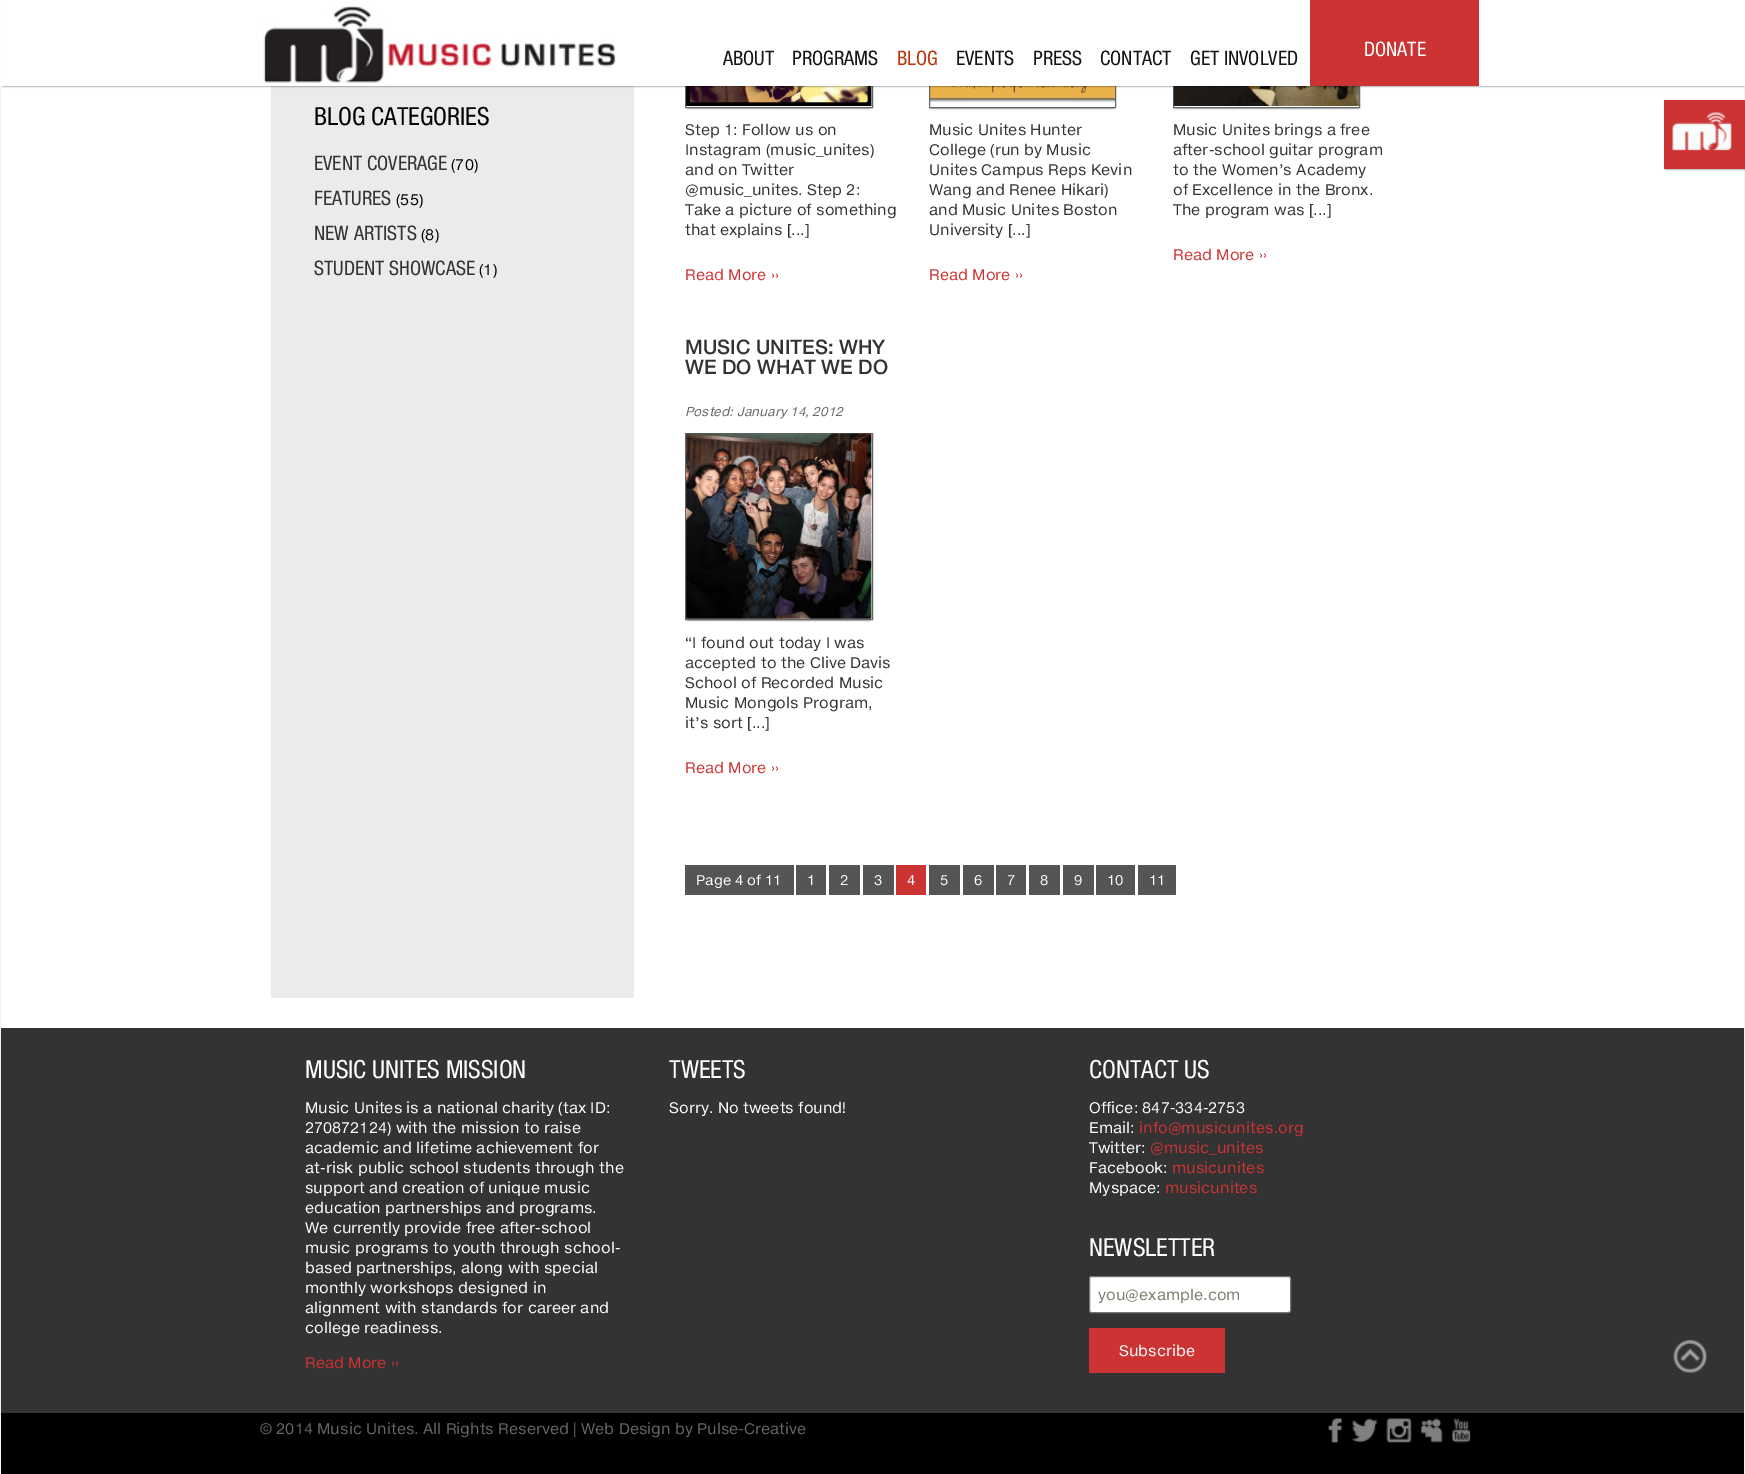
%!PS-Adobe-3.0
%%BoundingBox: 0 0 1745 1474
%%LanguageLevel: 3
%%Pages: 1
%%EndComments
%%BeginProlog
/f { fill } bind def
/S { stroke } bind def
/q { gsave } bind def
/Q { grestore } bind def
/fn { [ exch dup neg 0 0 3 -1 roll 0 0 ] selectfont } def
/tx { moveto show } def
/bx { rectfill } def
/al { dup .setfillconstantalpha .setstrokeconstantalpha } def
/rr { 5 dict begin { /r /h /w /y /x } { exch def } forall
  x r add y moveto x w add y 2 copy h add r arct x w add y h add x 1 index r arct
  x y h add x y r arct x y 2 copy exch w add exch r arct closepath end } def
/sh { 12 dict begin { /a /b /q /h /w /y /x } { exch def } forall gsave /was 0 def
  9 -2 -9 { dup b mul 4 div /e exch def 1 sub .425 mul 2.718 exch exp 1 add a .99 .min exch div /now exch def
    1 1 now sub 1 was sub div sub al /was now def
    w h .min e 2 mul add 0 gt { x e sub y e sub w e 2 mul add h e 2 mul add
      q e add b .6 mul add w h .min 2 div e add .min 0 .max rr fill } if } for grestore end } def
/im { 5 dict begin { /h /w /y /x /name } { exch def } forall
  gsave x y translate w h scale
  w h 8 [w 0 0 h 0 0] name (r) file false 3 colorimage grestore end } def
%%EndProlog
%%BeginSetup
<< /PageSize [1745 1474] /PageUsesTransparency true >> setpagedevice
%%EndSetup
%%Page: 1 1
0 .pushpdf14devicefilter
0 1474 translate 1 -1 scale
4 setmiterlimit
1 setgray
0 0 1745 1474 bx
0.949 setgray
1744 86 1 1388 bx
0 86 1 1388 bx
0.922 setgray
271 86 363 912 bx
0 setgray
688 -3 182 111 0 1 0.75 sh
(image1.raw) 686 86 186 21 im
0.4 setgray
685.5 -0.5 187 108 rectstroke
(image2.raw) 686 86 186 20 im
0 setgray
931 -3 183 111 0 1 0.75 sh
(image3.raw) 930 86 185 21 im
0.4 setgray
929.5 -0.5 186 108 rectstroke
0 setgray
1175 -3 183 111 0 1 0.75 sh
(image4.raw) 1174 86 185 21 im
0.4 setgray
1173.5 -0.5 186 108 rectstroke
(image5.raw) 1173 86 186 20 im
0 setgray
3 5 1740 81 0 1 0.75 sh
1 setgray
1 0 1744 86 bx
(image0.raw) 263 6 353 77 im
/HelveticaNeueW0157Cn-Regular 20 fn
0.078 0.078 0.071 setrgbcolor
(ABOUT) 723 65 tx
(PROGRAMS) 792 65 tx
0.737 0.212 0.039 setrgbcolor
(BLOG) 897 65 tx
0.078 0.078 0.071 setrgbcolor
(EVENTS) 956 65 tx
(PRESS) 1033 65 tx
(CONTACT) 1100 65 tx
(GET INVOLVED) 1190 65 tx
0.8 0.2 0.2 setrgbcolor
1310 0 169 86 bx
1 setgray
(DONATE) 1364 56 tx
/HelveticaNeueW0157Cn-Regular 25 fn
0 setgray
(BLOG CATEGORIES) 314 125 tx
/HelveticaNeueW0157Cn-Regular 20 fn
0.2 setgray
(EVENT COVERAGE) 314 170 tx
/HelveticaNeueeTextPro-Regular 15 fn
0 setgray
(\(70\)) 451 170 tx
/HelveticaNeueW0157Cn-Regular 20 fn
0.2 setgray
(FEATURES) 314 205 tx
/HelveticaNeueeTextPro-Regular 15 fn
0 setgray
(\(55\)) 396 205 tx
/HelveticaNeueW0157Cn-Regular 20 fn
0.2 setgray
(NEW ARTISTS) 314 240 tx
/HelveticaNeueeTextPro-Regular 15 fn
0 setgray
(\(8\)) 421 240 tx
/HelveticaNeueW0157Cn-Regular 20 fn
0.2 setgray
(STUDENT SHOWCASE) 314 275 tx
/HelveticaNeueeTextPro-Regular 15 fn
0 setgray
(\(1\)) 479 275 tx
0.2 setgray
(Step 1: Follow us on) 685 135 tx
(Instagram \(music_unites\)) 685 155 tx
(and on Twitter) 685 175 tx
(@music_unites. Step 2:) 685 195 tx
(Take a picture of something) 685 215 tx
(that explains [...]) 685 235 tx
0.8 0.2 0.2 setrgbcolor
(Read More ››) 685 280 tx
0.2 setgray
(Music Unites Hunter) 929 135 tx
(College \(run by Music) 929 155 tx
(Unites Campus Reps Kevin) 929 175 tx
(Wang and Renee Hikari\)) 929 195 tx
(and Music Unites Boston) 929 215 tx
(University [...]) 929 235 tx
0.8 0.2 0.2 setrgbcolor
(Read More ››) 929 280 tx
0.2 setgray
(Music Unites brings a free) 1173 135 tx
(after-school guitar program) 1173 155 tx
(to the Women’s Academy) 1173 175 tx
(of Excellence in the Bronx.) 1173 195 tx
(The program was [...]) 1173 215 tx
0.8 0.2 0.2 setrgbcolor
(Read More ››) 1173 260 tx
/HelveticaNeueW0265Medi-Medium 20 fn
0.2 setgray
(MUSIC UNITES: WHY) 685 354 tx
(WE DO WHAT WE DO) 685 374 tx
/HelveticaNeueeTextPro-Italic 12.5 fn
0.4 setgray
(Posted: January 14, 2012) 685 416 tx
0 setgray
688 438 182 182 0 1 0.75 sh
(image6.raw) 686 434 186 185 im
0.4 setgray
685.5 433.5 187 186 rectstroke
(image7.raw) 686 433 186 186 im
/HelveticaNeueeTextPro-Regular 15 fn
0.2 setgray
(“I found out today I was) 685 648 tx
(accepted to the Clive Davis) 685 668 tx
(School of Recorded Music) 685 688 tx
(Music Mongols Program,) 685 708 tx
(it’s sort [...]) 685 728 tx
0.8 0.2 0.2 setrgbcolor
(Read More ››) 685 773 tx
0.333 setgray
685 865 109 30 bx
/HelveticaNeueeTextPro-Regular 13.75 fn
1 setgray
(Page 4 of 11) 696 885 tx
0.333 setgray
796 865 30 30 bx
1 setgray
(1) 807 885 tx
0.333 setgray
829 865 31 30 bx
1 setgray
(2) 840 885 tx
0.333 setgray
863 865 31 30 bx
1 setgray
(3) 874 885 tx
0.8 0.2 0.2 setrgbcolor
896 865 30 30 bx
1 setgray
(4) 907 885 tx
0.333 setgray
929 865 31 30 bx
1 setgray
(5) 940 885 tx
0.333 setgray
963 865 31 30 bx
1 setgray
(6) 974 885 tx
0.333 setgray
996 865 30 30 bx
1 setgray
(7) 1007 885 tx
0.333 setgray
1029 865 31 30 bx
1 setgray
(8) 1040 885 tx
0.333 setgray
1063 865 31 30 bx
1 setgray
(9) 1074 885 tx
0.333 setgray
1096 865 39 30 bx
1 setgray
(10) 1107 885 tx
0.333 setgray
1138 865 38 30 bx
1 setgray
(11) 1149 885 tx
0 setgray
1666 105 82 64 0 1 0.75 sh
0.8 0.2 0.2 setrgbcolor
1664 100 81 69 bx
(image8.raw) 1672 112 60 39 im
0.2 setgray
1 1028 1743 385 bx
(image9.raw) 1673 1339 34 34 im
0 setgray
1 1413 1743 61 bx
/HelveticaNeueW0157Cn-Regular 25 fn
1 setgray
(MUSIC UNITES MISSION) 305 1078 tx
/HelveticaNeueeTextPro-Regular 15 fn
(Music Unites is a national charity \(tax ID:) 305 1113 tx
(270872124\) with the mission to raise) 305 1133 tx
(academic and lifetime achievement for) 305 1153 tx
(at-risk public school students through the) 305 1173 tx
(support and creation of unique music) 305 1193 tx
(education partnerships and programs.) 305 1213 tx
(We currently provide free after-school) 305 1233 tx
(music programs to youth through school-) 305 1253 tx
(based partnerships, along with special) 305 1273 tx
(monthly workshops designed in) 305 1293 tx
(alignment with standards for career and) 305 1313 tx
(college readiness.) 305 1333 tx
0.8 0.2 0.2 setrgbcolor
(Read More ››) 305 1368 tx
/HelveticaNeueW0157Cn-Regular 25 fn
1 setgray
(TWEETS) 669 1078 tx
/HelveticaNeueeTextPro-Regular 15 fn
(Sorry. No tweets found!) 669 1113 tx
/HelveticaNeueW0157Cn-Regular 25 fn
(CONTACT US) 1089 1078 tx
/HelveticaNeueeTextPro-Regular 15 fn
(Office: 847-334-2753) 1089 1113 tx
(Email:) 1089 1133 tx
0.8 0.2 0.2 setrgbcolor
(info@musicunites.org) 1139 1133 tx
1 setgray
(Twitter:) 1089 1153 tx
0.8 0.2 0.2 setrgbcolor
(@music_unites) 1150 1153 tx
1 setgray
(Facebook:) 1089 1173 tx
0.8 0.2 0.2 setrgbcolor
(musicunites) 1172 1173 tx
1 setgray
(Myspace:) 1089 1193 tx
0.8 0.2 0.2 setrgbcolor
(musicunites) 1165 1193 tx
/HelveticaNeueW0157Cn-Regular 25 fn
1 setgray
(NEWSLETTER) 1089 1256 tx
1089.5 1276.5 201 36 2 rr q f Q
0.463 setgray
S
/HelveticaNeueeTextPro-Regular 15 fn
0.49 0.482 0.427 setrgbcolor
(you@example.com) 1098 1300 tx
0.8 0.2 0.2 setrgbcolor
1089 1328 136 45 bx
1 setgray
(Subscribe) 1119 1356 tx
0.4 setgray
(© 2014 Music Unites. All Rights Reserved | Web Design by Pulse-Creative) 260 1434 tx
(image10.raw) 1328 1418 143 25 im
.poppdf14devicefilter showpage
%%EOF
